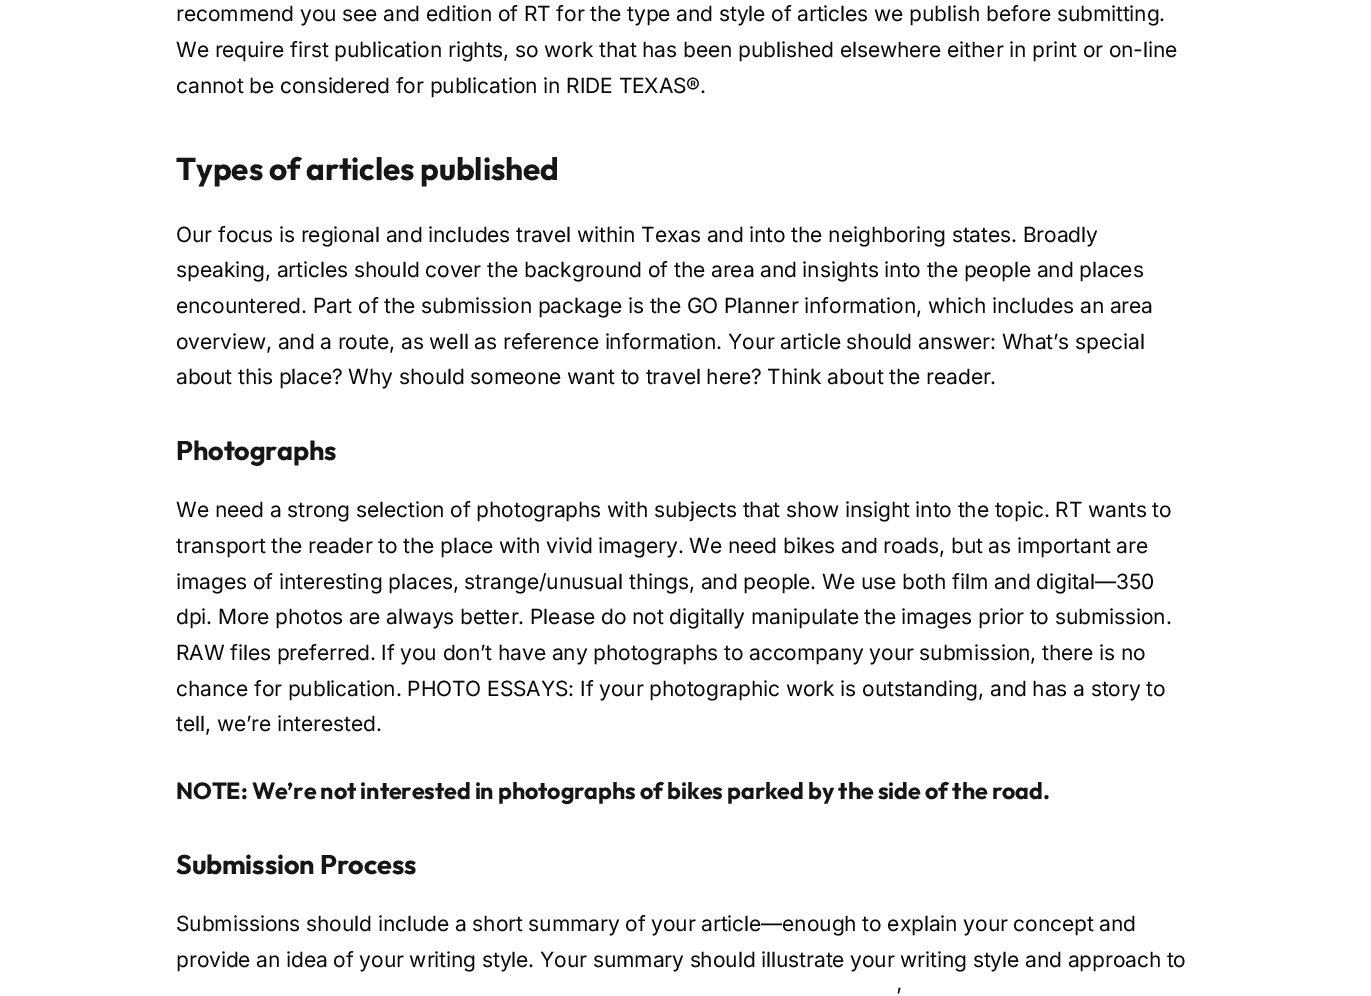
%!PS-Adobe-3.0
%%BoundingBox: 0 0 1371 996
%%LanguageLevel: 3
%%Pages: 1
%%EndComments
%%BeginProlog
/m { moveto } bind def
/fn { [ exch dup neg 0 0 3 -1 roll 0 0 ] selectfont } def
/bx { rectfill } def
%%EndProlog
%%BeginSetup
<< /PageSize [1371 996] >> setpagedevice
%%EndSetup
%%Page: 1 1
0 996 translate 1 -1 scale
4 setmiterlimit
1 setgray
0 0 1371 996 bx
/Inter-Regular 21 fn
0.039 setgray
176 21 m -0.11 0 (recommend you see and edition of RT for the type and style of articles we publish before submitting.) ashow
176 57 m -0.11 0 (We require first publication rights, so work that has been published elsewhere either in print or on-line) ashow
176 93 m -0.11 0 (cannot be considered for publication in RIDE TEXAS®.) ashow
/Outfit-Bold 31.5 fn
0.086 setgray
176 180 m -0.11 0 (Types of articles published) ashow
/Inter-Regular 21 fn
0.039 setgray
176 242 m -0.11 0 (Our focus is regional and includes travel within Texas and into the neighboring states. Broadly) ashow
176 277 m -0.11 0 (speaking, articles should cover the background of the area and insights into the people and places) ashow
176 313 m -0.11 0 (encountered. Part of the submission package is the GO Planner information, which includes an area) ashow
176 349 m -0.11 0 (overview, and a route, as well as reference information. Your article should answer: What’s special) ashow
176 384 m -0.11 0 (about this place? Why should someone want to travel here? Think about the reader.) ashow
/Outfit-Bold 27 fn
0.086 setgray
176 460 m -0.11 0 (Photographs) ashow
/Inter-Regular 21 fn
0.039 setgray
176 517 m -0.11 0 (We need a strong selection of photographs with subjects that show insight into the topic. RT wants to) ashow
176 553 m -0.11 0 (transport the reader to the place with vivid imagery. We need bikes and roads, but as important are) ashow
176 589 m -0.11 0 (images of interesting places, strange/unusual things, and people. We use both film and digital—350) ashow
176 624 m -0.11 0 (dpi. More photos are always better. Please do not digitally manipulate the images prior to submission.) ashow
176 660 m -0.11 0 (RAW files preferred. If you don’t have any photographs to accompany your submission, there is no) ashow
176 696 m -0.11 0 (chance for publication. PHOTO ESSAYS: If your photographic work is outstanding, and has a story to) ashow
176 731 m -0.11 0 (tell, we’re interested.) ashow
/Outfit-Bold 23.25 fn
0.086 setgray
176 799 m -0.11 0 (NOTE: We’re not interested in photographs of bikes parked by the side of the road.) ashow
/Outfit-Bold 27 fn
176 874 m -0.11 0 (Submission Process) ashow
/Inter-Regular 21 fn
0.039 setgray
176 931 m -0.11 0 (Submissions should include a short summary of your article—enough to explain your concept and) ashow
176 967 m -0.11 0 (provide an idea of your writing style. Your summary should illustrate your writing style and approach to) ashow
896 1003 m -0.11 0 (’) ashow
showpage
%%EOF
